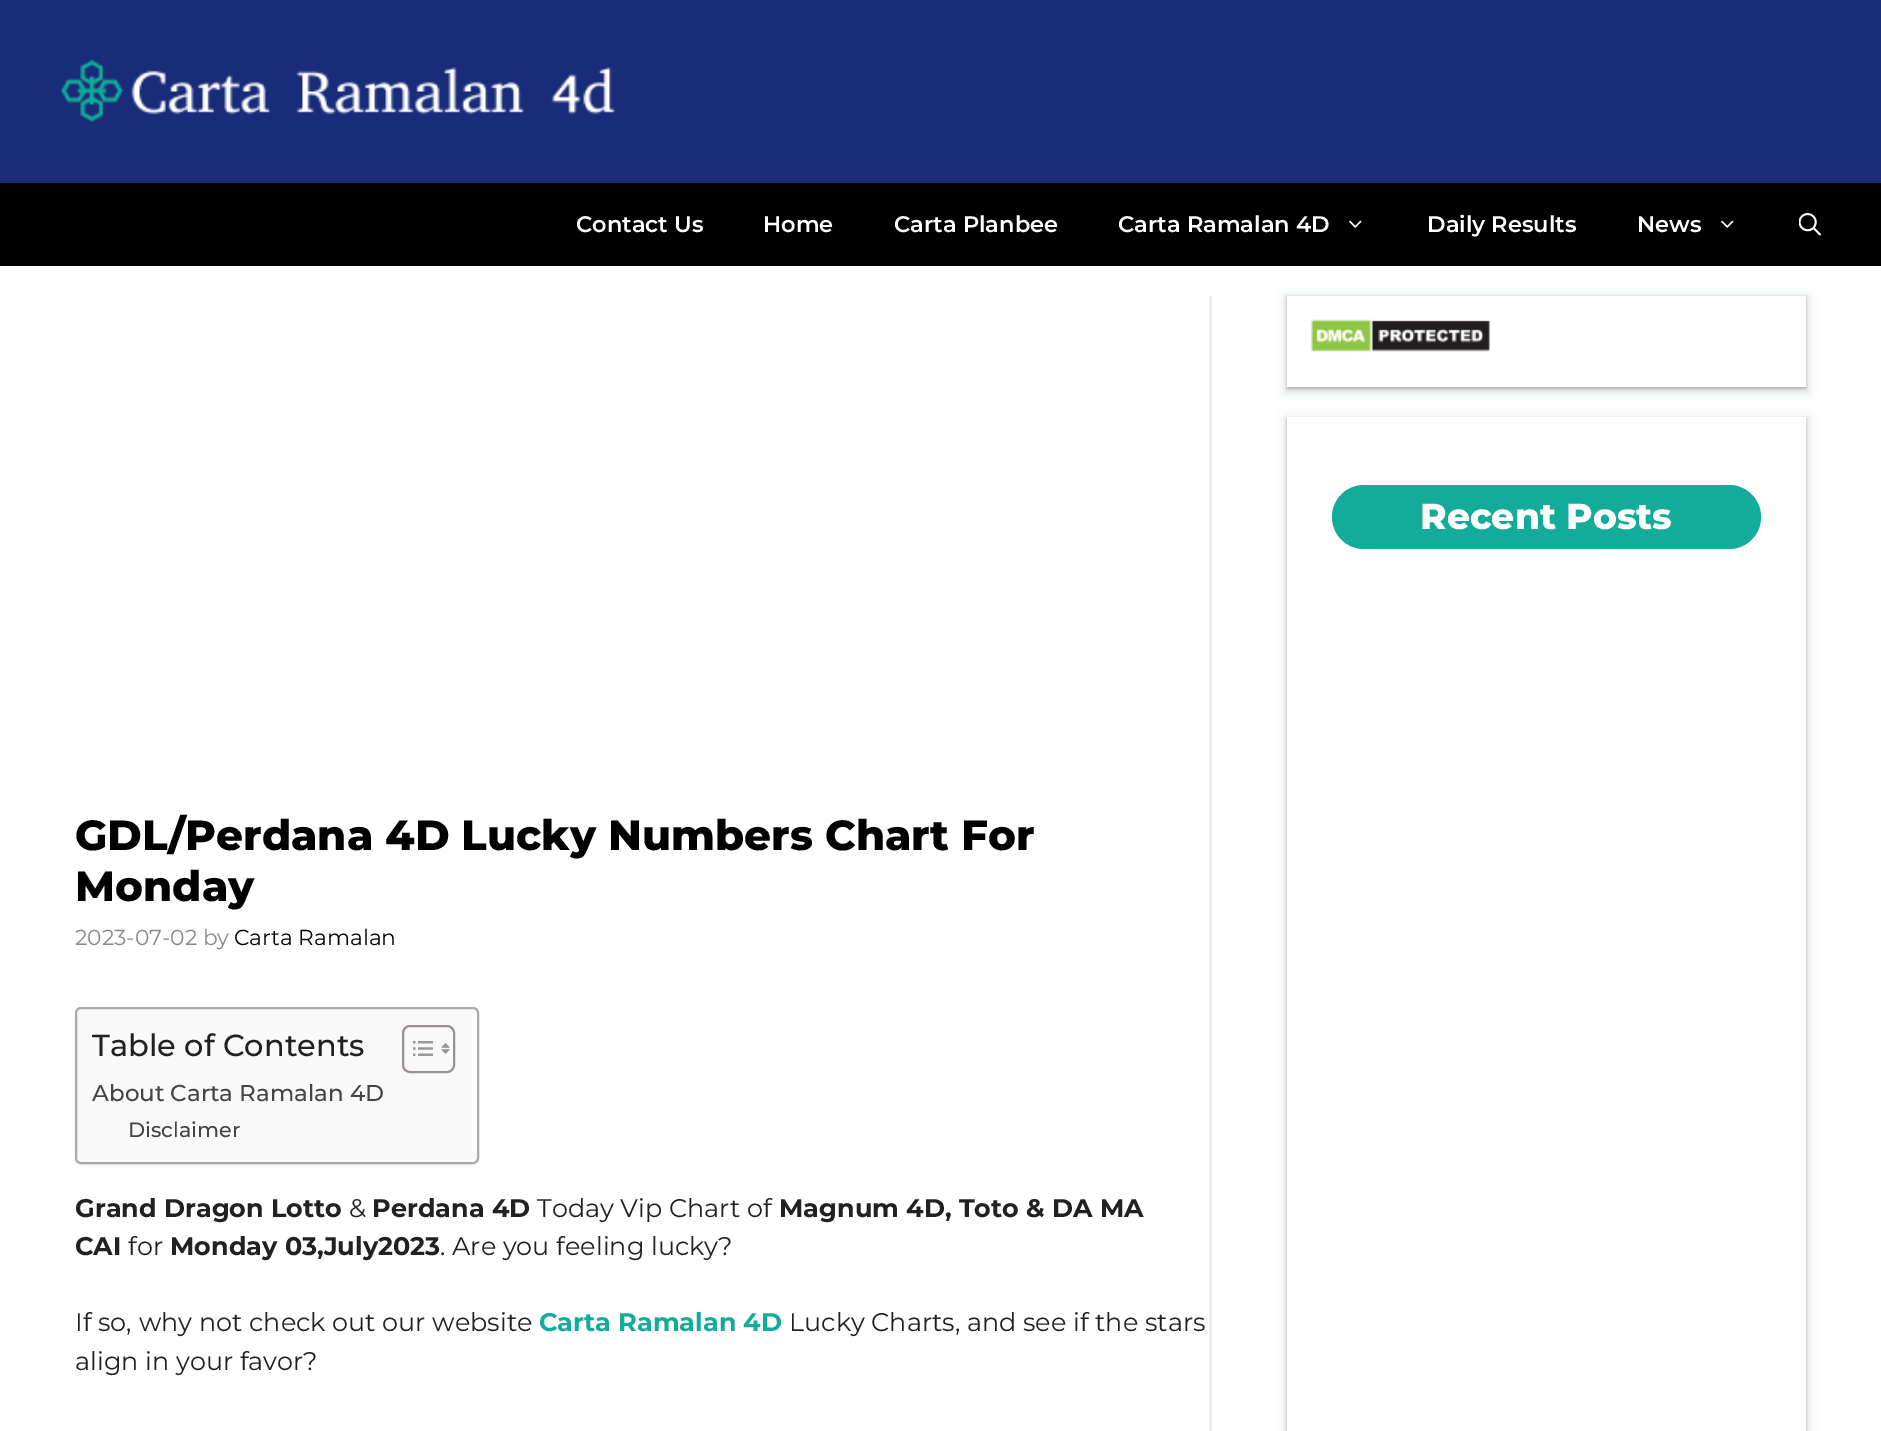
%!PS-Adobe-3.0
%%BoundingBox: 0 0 1881 1431
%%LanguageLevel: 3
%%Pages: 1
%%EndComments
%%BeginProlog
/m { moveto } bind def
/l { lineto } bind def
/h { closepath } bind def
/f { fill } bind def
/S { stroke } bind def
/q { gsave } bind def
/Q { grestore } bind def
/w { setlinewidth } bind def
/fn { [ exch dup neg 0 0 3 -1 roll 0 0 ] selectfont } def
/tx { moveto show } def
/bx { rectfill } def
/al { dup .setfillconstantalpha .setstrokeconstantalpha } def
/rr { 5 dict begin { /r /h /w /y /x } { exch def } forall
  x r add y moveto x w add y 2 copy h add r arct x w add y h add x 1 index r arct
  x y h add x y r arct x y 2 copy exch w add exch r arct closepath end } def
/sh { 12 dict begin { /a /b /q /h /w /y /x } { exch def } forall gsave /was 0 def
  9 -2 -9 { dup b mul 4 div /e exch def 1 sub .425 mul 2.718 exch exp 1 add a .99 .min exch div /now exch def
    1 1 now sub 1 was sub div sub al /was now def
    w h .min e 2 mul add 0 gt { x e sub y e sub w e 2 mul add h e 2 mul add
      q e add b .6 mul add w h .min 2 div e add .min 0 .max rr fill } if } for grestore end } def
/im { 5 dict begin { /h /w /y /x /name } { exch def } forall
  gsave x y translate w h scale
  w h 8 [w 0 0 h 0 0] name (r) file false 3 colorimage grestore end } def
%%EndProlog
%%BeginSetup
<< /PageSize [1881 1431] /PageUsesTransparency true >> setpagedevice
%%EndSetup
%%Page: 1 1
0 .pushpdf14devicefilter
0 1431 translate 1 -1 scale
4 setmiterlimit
0 setgray
0 0 1881 1431 bx
0.098 0.173 0.475 setrgbcolor
0 0 1881 183 bx
(image0.raw) 60 60 555 62 im
/Montserrat-SemiBold 22.5 fn
1 setgray
(Contact Us) 576 232 tx
(Home) 763 232 tx
(Carta Planbee) 894 232 tx
(Carta Ramalan 4D) 1118 232 tx
(image1.raw) 1349 220 13 8 im
(Daily Results) 1427 232 tx
(News) 1637 232 tx
(image1.raw) 1721 220 13 8 im
(image2.raw) 1799 213 22 23 im
0 266 1881 1165 bx
q
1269 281 m 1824 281 l 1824 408 l 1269 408 l h 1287 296 m 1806 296 l 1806 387 l 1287 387 l h eoclip newpath
0.235 0.251 0.263 setrgbcolor
1284 296 525 97 0 4.5 0.15 sh
Q
q
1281 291 m 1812 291 l 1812 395 l 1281 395 l h 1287 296 m 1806 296 l 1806 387 l 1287 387 l h eoclip newpath
0.235 0.251 0.263 setrgbcolor
1287 297 519 92 0 1.5 0.3 sh
Q
(image3.raw) 1310 319 180 33 im
q
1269 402 m 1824 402 l 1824 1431 l 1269 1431 l h 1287 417 m 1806 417 l 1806 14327 l 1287 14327 l h eoclip newpath
0.235 0.251 0.263 setrgbcolor
1284 417 525 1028 0 4.5 0.15 sh
Q
q
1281 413 m 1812 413 l 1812 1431 l 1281 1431 l h 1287 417 m 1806 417 l 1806 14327 l 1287 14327 l h eoclip newpath
0.235 0.251 0.263 setrgbcolor
1287 419 519 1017 0 1.5 0.3 sh
Q
0.075 0.675 0.604 setrgbcolor
1332 485 429 64 32 rr f
/Montserrat-ExtraBold 36 fn
1 setgray
(Recent Posts) 1420 529 tx
0.929 setgray
1212 296 m 1212 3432 l 1209 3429 l 1209 296 l h f
/Montserrat-ExtraBold 42 fn
0 setgray
(GDL/Perdana 4D Lucky Numbers Chart For) 75 850 tx
(Monday) 75 901 tx
/Montserrat-Regular 21.75 fn
0.529 setgray
(2023-07-02 by) 75 945 tx
0 setgray
(Carta Ramalan) 234 945 tx
75 1008 404 158 6 1 0.05 sh
0.976 setgray
76 1008 402 155 5 rr q f Q
0.667 setgray
2 w
S
/Montserrat-Medium 30.5 fn
0.129 setgray
(Table of Contents) 92 1056 tx
0.6 0.569 0.569 setrgbcolor
403 1026 51 46 7 rr S
(image4.raw) 413 1041 20 15 im
(image5.raw) 441 1043 9 11 im
/Montserrat-Medium 23 fn
0.267 setgray
(About Carta Ramalan 4D) 92 1101 tx
/Montserrat-Medium 20.75 fn
(Disclaimer) 128 1137 tx
/Montserrat-Bold 25.5 fn
0.129 setgray
(Grand Dragon Lotto) 75 1217 tx
/Montserrat-Regular 25.5 fn
(&) 349 1217 tx
/Montserrat-Bold 25.5 fn
(Perdana 4D) 372 1217 tx
/Montserrat-Regular 25.5 fn
(Today Vip Chart of) 537 1217 tx
/Montserrat-Bold 25.5 fn
(Magnum 4D, Toto & DA MA) 779 1217 tx
(CAI) 75 1255 tx
/Montserrat-Regular 25.5 fn
(for) 128 1255 tx
/Montserrat-Bold 25.5 fn
(Monday 03,July2023) 170 1255 tx
/Montserrat-Regular 25.5 fn
(. Are you feeling lucky?) 440 1255 tx
(If so, why not check out our website) 75 1331 tx
/Montserrat-Bold 25.5 fn
0.075 0.675 0.604 setrgbcolor
(Carta Ramalan 4D) 539 1331 tx
/Montserrat-Regular 25.5 fn
0.129 setgray
(Lucky Charts, and see if the stars) 789 1331 tx
(align in your favor?) 75 1370 tx
.poppdf14devicefilter showpage
%%EOF
